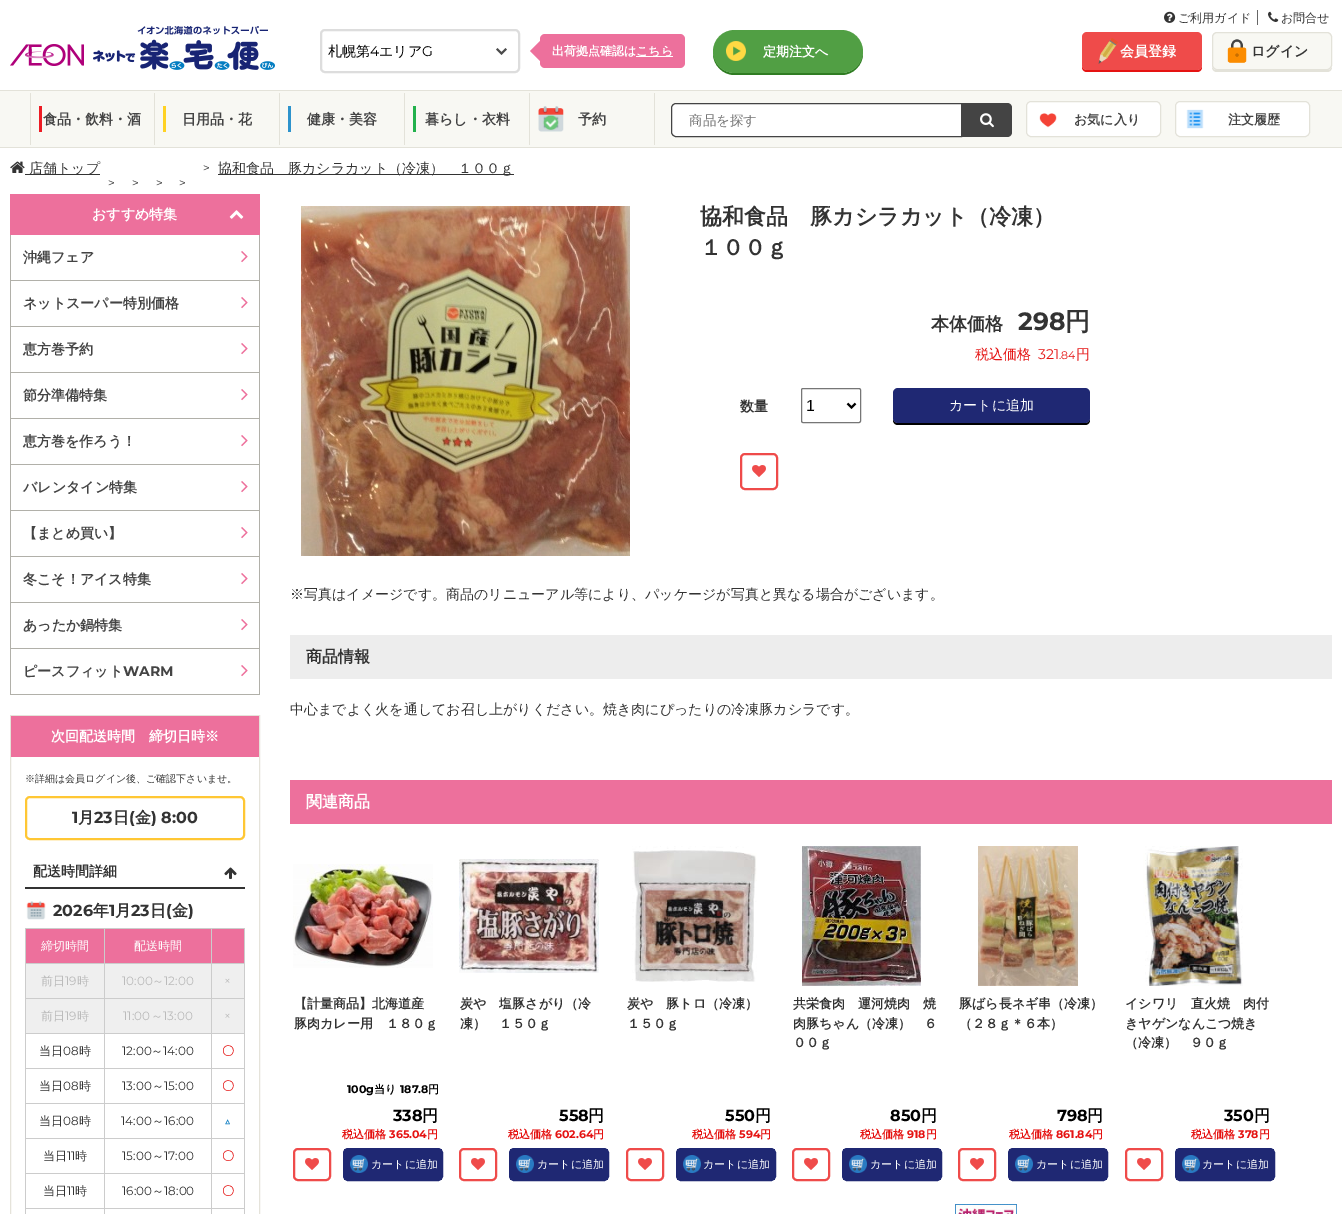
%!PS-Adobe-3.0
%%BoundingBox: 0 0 1342 1214
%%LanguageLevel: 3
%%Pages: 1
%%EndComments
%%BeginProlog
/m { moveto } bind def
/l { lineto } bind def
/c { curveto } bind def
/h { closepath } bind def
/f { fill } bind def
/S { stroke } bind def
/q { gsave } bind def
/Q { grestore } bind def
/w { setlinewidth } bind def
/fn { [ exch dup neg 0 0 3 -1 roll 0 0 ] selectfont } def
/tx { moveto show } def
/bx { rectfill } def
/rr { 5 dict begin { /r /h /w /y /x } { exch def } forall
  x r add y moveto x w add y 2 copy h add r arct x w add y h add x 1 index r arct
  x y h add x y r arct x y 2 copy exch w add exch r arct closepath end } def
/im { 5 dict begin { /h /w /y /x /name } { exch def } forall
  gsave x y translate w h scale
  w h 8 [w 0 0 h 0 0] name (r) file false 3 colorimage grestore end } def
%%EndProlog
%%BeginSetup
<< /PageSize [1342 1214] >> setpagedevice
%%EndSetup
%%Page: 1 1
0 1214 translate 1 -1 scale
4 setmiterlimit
1 setgray
0 0 1342 1214 bx
0.4 setgray
1257 10 1 15 bx
(image0.raw) 1164 11 12 12 im
/WenQuanYiZenHei-Medium 12 fn
0.2 setgray
(ご利用ガイド) 1178 22 tx
(image1.raw) 1268 11 11 11 im
(お問合せ) 1281 22 tx
(image2.raw) 10 26 265 44 im
(image3.raw) 496 48 11 7 im
0.867 setgray
2 w
321 30 198 42 4 rr S
/WenQuanYiZenHei-Medium 14 fn
0 setgray
(札幌第) 328 56 tx
/Montserrat-Regular 14 fn
(4) 370 56 tx
/WenQuanYiZenHei-Medium 14 fn
(エリア) 379 56 tx
/Montserrat-Regular 14 fn
(G) 422 56 tx
0.929 0.439 0.612 setrgbcolor
540 34 145 34 5 rr f
540 41 m 540 61 l 530 51 l h f
/WenQuanYiZenHei-Bold 12 fn
1 setgray
(出荷拠点確認は) 552 55 tx
636 56 37 1 bx
(こちら) 636 55 tx
0.184 0.486 0.133 setrgbcolor
713 52 m 713 54 l 713 65 723 75 734 75 c 842 75 l 853 75 863 65 863 54 c 863 52 l 862 64 853 73 842 73 c 734 73 l 723 73 714 64 713 52 c h f
0.318 0.624 0.267 setrgbcolor
713 30 150 43 21.5 rr f
(image4.raw) 726 41 20 20 im
/WenQuanYiZenHei-Bold 13 fn
1 setgray
(定期注文へ) 763 56 tx
0.898 0.075 0.071 setrgbcolor
1082 65 m 1082 67 l 1082 70 1084 72 1087 72 c 1197 72 l 1200 72 1202 70 1202 67 c 1202 65 l 1202 68 1200 70 1197 70 c 1087 70 l 1084 70 1082 68 1082 65 c h f
0.937 0.294 0.29 setrgbcolor
1082 32 120 38 5 rr f
(image5.raw) 1098 38 20 26 im
/WenQuanYiZenHei-Bold 14 fn
1 setgray
(会員登録) 1120 56 tx
0.89 0.886 0.851 setrgbcolor
1212 65 m 1212 67 l 1212 70 1214 72 1217 72 c 1327 72 l 1330 72 1332 70 1332 67 c 1332 65 l 1332 68 1330 70 1327 70 c 1217 70 l 1214 70 1212 68 1212 65 c h f
0.973 0.973 0.953 setrgbcolor
1212 32 120 38 5 rr f
(image6.raw) 1227 39 20 24 im
0.89 0.886 0.851 setrgbcolor
1 w
1212.5 32.5 119 37 4.5 rr S
0.2 setgray
(ログイン) 1251 56 tx
0.973 0.973 0.953 setrgbcolor
0 91 1342 56 bx
0.89 0.886 0.851 setrgbcolor
0 90 1342 1 bx
0 147 1342 1 bx
0.929 0.11 0.141 setrgbcolor
39 106 3 26 bx
0.89 0.886 0.851 setrgbcolor
154 93 1 52 bx
30 93 1 52 bx
0.267 setgray
(食品・飲料・酒) 43 124 tx
1 0.824 0.141 setrgbcolor
163 106 3 26 bx
0.89 0.886 0.851 setrgbcolor
279 93 1 52 bx
0.267 setgray
(日用品・花) 182 124 tx
0.176 0.576 0.8 setrgbcolor
288 106 3 26 bx
0.89 0.886 0.851 setrgbcolor
404 93 1 52 bx
0.267 setgray
(健康・美容) 307 124 tx
0.133 0.694 0.298 setrgbcolor
413 106 3 26 bx
0.89 0.886 0.851 setrgbcolor
529 93 1 52 bx
0.267 setgray
(暮らし・衣料) 425 124 tx
(image7.raw) 538 106 26 26 im
0.89 0.886 0.851 setrgbcolor
654 93 1 52 bx
0.267 setgray
(予約) 578 124 tx
1 setgray
676 103.5 m 961.5 103.5 l 961.5 136.5 l 676 136.5 l 673.5 136.5 671.5 134.5 671.5 132 c 671.5 108 l 671.5 105.5 673.5 103.5 676 103.5 c h q f Q
0.267 setgray
S
/WenQuanYiZenHei-Medium 13.5 fn
0.459 setgray
(商品を探す) 689 125 tx
0.267 setgray
962 103 m 1007 103 l 1010 103 1012 105 1012 108 c 1012 132 l 1012 135 1010 137 1007 137 c 962 137 l h f
(image8.raw) 980 113 14 15 im
1 setgray
1026 101 135 36 5 rr f
(image9.raw) 1039 113 18 15 im
0.89 0.886 0.851 setrgbcolor
1026.5 101.5 134 35 4.5 rr S
/WenQuanYiZenHei-Bold 13 fn
0.267 setgray
(お気に入り) 1074 124 tx
1 setgray
1175 101 135 36 5 rr f
(image10.raw) 1186 109 18 20 im
0.89 0.886 0.851 setrgbcolor
1175.5 101.5 134 35 4.5 rr S
0.267 setgray
(注文履歴) 1228 124 tx
(image11.raw) 10 161 15 12 im
0.2 setgray
25 174 75 1 bx
/WenQuanYiZenHei-Medium 14 fn
(店舗トップ) 29 173 tx
/Montserrat-Regular 12 fn
(>) 203 172 tx
218 174 296 1 bx
/WenQuanYiZenHei-Medium 14 fn
(協和食品　豚カシラカット（冷凍）　１００ｇ) 218 173 tx
/Montserrat-Regular 12 fn
(>) 108 187 tx
(>) 132 187 tx
(>) 156 187 tx
(>) 179 187 tx
0.929 0.439 0.612 setrgbcolor
10 194 250 41 bx
/WenQuanYiZenHei-Bold 14 fn
1 setgray
(おすすめ特集) 92 219 tx
(image12.raw) 229 210 15 9 im
0.694 0.69 0.663 setrgbcolor
259 235 1 460 bx
10 694 250 1 bx
10 235 1 460 bx
11 280 248 1 bx
0.267 setgray
(沖縄フェア) 23 262 tx
(image13.raw) 241 251 7 12 im
0.694 0.69 0.663 setrgbcolor
11 326 248 1 bx
0.267 setgray
(ネットスーパー特別価格) 23 308 tx
(image13.raw) 241 297 7 12 im
0.694 0.69 0.663 setrgbcolor
11 372 248 1 bx
0.267 setgray
(恵方巻予約) 23 354 tx
(image13.raw) 241 343 7 12 im
0.694 0.69 0.663 setrgbcolor
11 418 248 1 bx
0.267 setgray
(節分準備特集) 23 400 tx
(image13.raw) 241 389 7 12 im
0.694 0.69 0.663 setrgbcolor
11 464 248 1 bx
0.267 setgray
(恵方巻を作ろう！) 23 446 tx
(image13.raw) 241 435 7 12 im
0.694 0.69 0.663 setrgbcolor
11 510 248 1 bx
0.267 setgray
(バレンタイン特集) 23 492 tx
(image13.raw) 241 481 7 12 im
0.694 0.69 0.663 setrgbcolor
11 556 248 1 bx
0.267 setgray
(【まとめ買い】) 23 538 tx
(image13.raw) 241 527 7 12 im
0.694 0.69 0.663 setrgbcolor
11 602 248 1 bx
0.267 setgray
(冬こそ！アイス特集) 23 584 tx
(image13.raw) 241 573 7 12 im
0.694 0.69 0.663 setrgbcolor
11 648 248 1 bx
0.267 setgray
(あったか鍋特集) 23 630 tx
(image13.raw) 241 619 7 12 im
(ピースフィット) 23 676 tx
/Montserrat-Bold 14 fn
(WARM) 123 676 tx
(image13.raw) 241 665 7 12 im
0.898 0.89 0.855 setrgbcolor
10.5 715.5 249 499 rectstroke
0.929 0.439 0.612 setrgbcolor
11 716 248 41 bx
/WenQuanYiZenHei-Bold 14 fn
1 setgray
(次回配送時間　締切日時※) 51 741 tx
/WenQuanYiZenHei-Medium 10 fn
0.2 setgray
(※詳細は会員ログイン後、ご確認下さいませ。) 25 782 tx
1 0.78 0.204 setrgbcolor
2 w
26 797 218 42 4 rr S
/Montserrat-Bold 16 fn
0.2 setgray
(1) 72 823 tx
/WenQuanYiZenHei-Bold 16 fn
(月) 78 823 tx
/Montserrat-Bold 16 fn
(23) 94 823 tx
/WenQuanYiZenHei-Bold 16 fn
(日) 113 823 tx
/Montserrat-Bold 16 fn
(\() 129 823 tx
/WenQuanYiZenHei-Bold 16 fn
(金) 135 823 tx
/Montserrat-Bold 16 fn
(\) 8:00) 151 823 tx
25 887 220 2 bx
/WenQuanYiZenHei-Bold 14 fn
(配送時間詳細) 33 876 tx
(image14.raw) 224 867 13 12 im
(image15.raw) 26 901 20 19 im
/Montserrat-Bold 16 fn
(2026) 53 916 tx
/WenQuanYiZenHei-Bold 16 fn
(年) 93 916 tx
/Montserrat-Bold 16 fn
(1) 109 916 tx
/WenQuanYiZenHei-Bold 16 fn
(月) 115 916 tx
/Montserrat-Bold 16 fn
(23) 131 916 tx
/WenQuanYiZenHei-Bold 16 fn
(日) 150 916 tx
/Montserrat-Bold 16 fn
(\() 166 916 tx
/WenQuanYiZenHei-Bold 16 fn
(金) 172 916 tx
/Montserrat-Bold 16 fn
(\)) 188 916 tx
0.929 0.439 0.612 setrgbcolor
26 929 78 34 bx
0.8 setgray
211 928 34 1 bx
211 963 34 1 bx
0.937 setgray
26 964 218 34 bx
0.8 setgray
211 998 34 1 bx
0.937 setgray
26 999 218 34 bx
0.8 setgray
211 1033 34 1 bx
211 1068 34 1 bx
211 1103 34 1 bx
211 1138 34 1 bx
211 1173 34 1 bx
211 1208 34 1 bx
211 1208 1 6 bx
104 1208 108 1 bx
211 1173 1 36 bx
104 1173 108 1 bx
211 1138 1 36 bx
104 1138 108 1 bx
211 1103 1 36 bx
104 1103 108 1 bx
211 1068 1 36 bx
104 1068 108 1 bx
211 1033 1 36 bx
104 1033 108 1 bx
211 998 1 36 bx
104 998 108 1 bx
211 963 1 36 bx
104 963 108 1 bx
211 928 1 36 bx
104 928 108 1 bx
104 1208 1 6 bx
25 1208 80 1 bx
104 1173 1 36 bx
25 1173 80 1 bx
104 1138 1 36 bx
25 1138 80 1 bx
104 1103 1 36 bx
25 1103 80 1 bx
104 1068 1 36 bx
25 1068 80 1 bx
104 1033 1 36 bx
25 1033 80 1 bx
104 998 1 36 bx
25 998 80 1 bx
104 963 1 36 bx
25 963 80 1 bx
104 928 1 36 bx
25 928 80 1 bx
25 1208 1 6 bx
25 1173 1 36 bx
25 1138 1 36 bx
25 1103 1 36 bx
25 1068 1 36 bx
25 1033 1 36 bx
25 998 1 36 bx
25 963 1 36 bx
25 928 1 36 bx
/WenQuanYiZenHei-Medium 12 fn
1 setgray
(締切時間) 41 950 tx
0.929 0.439 0.612 setrgbcolor
105 929 106 34 bx
1 setgray
(配送時間) 134 950 tx
0.929 0.439 0.612 setrgbcolor
212 929 32 34 bx
0.8 setgray
244 1208 1 6 bx
244 1173 1 36 bx
244 1138 1 36 bx
244 1103 1 36 bx
244 1068 1 36 bx
244 1033 1 36 bx
244 998 1 36 bx
244 963 1 36 bx
244 928 1 36 bx
0.733 setgray
(前日) 41 985 tx
/Montserrat-Regular 12 fn
(19) 65 985 tx
/WenQuanYiZenHei-Medium 12 fn
(時) 77 985 tx
/Montserrat-Regular 12 fn
(10:00) 122 985 tx
/WenQuanYiZenHei-Medium 12 fn
(～) 152 985 tx
/Montserrat-Regular 12 fn
(12:00) 164 985 tx
(×) 224 985 tx
/WenQuanYiZenHei-Medium 12 fn
(前日) 41 1020 tx
/Montserrat-Regular 12 fn
(19) 65 1020 tx
/WenQuanYiZenHei-Medium 12 fn
(時) 77 1020 tx
/Montserrat-Regular 12 fn
(11:00) 123 1020 tx
/WenQuanYiZenHei-Medium 12 fn
(～) 151 1020 tx
/Montserrat-Regular 12 fn
(13:00) 163 1020 tx
(×) 224 1020 tx
/WenQuanYiZenHei-Medium 12 fn
0.2 setgray
(当日) 39 1055 tx
/Montserrat-Regular 12 fn
(08) 63 1055 tx
/WenQuanYiZenHei-Medium 12 fn
(時) 79 1055 tx
/Montserrat-Regular 12 fn
(12:00) 122 1055 tx
/WenQuanYiZenHei-Medium 12 fn
(～) 151 1055 tx
/Montserrat-Regular 12 fn
(14:00) 163 1055 tx
/WenQuanYiZenHei-Bold 12 fn
0.898 0.075 0.071 setrgbcolor
(〇) 222 1055 tx
/WenQuanYiZenHei-Medium 12 fn
0.2 setgray
(当日) 39 1090 tx
/Montserrat-Regular 12 fn
(08) 63 1090 tx
/WenQuanYiZenHei-Medium 12 fn
(時) 79 1090 tx
/Montserrat-Regular 12 fn
(13:00) 122 1090 tx
/WenQuanYiZenHei-Medium 12 fn
(～) 152 1090 tx
/Montserrat-Regular 12 fn
(15:00) 164 1090 tx
/WenQuanYiZenHei-Bold 12 fn
0.898 0.075 0.071 setrgbcolor
(〇) 222 1090 tx
/WenQuanYiZenHei-Medium 12 fn
0.2 setgray
(当日) 39 1125 tx
/Montserrat-Regular 12 fn
(08) 63 1125 tx
/WenQuanYiZenHei-Medium 12 fn
(時) 79 1125 tx
/Montserrat-Regular 12 fn
(14:00) 121 1125 tx
/WenQuanYiZenHei-Medium 12 fn
(～) 152 1125 tx
/Montserrat-Regular 12 fn
(16:00) 164 1125 tx
/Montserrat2-Bold 12 fn
0.047 0.49 0.765 setrgbcolor
(△) 224 1125 tx
/WenQuanYiZenHei-Medium 12 fn
0.2 setgray
(当日) 43 1160 tx
/Montserrat-Regular 12 fn
(11) 67 1160 tx
/WenQuanYiZenHei-Medium 12 fn
(時) 75 1160 tx
/Montserrat-Regular 12 fn
(15:00) 122 1160 tx
/WenQuanYiZenHei-Medium 12 fn
(～) 152 1160 tx
/Montserrat-Regular 12 fn
(17:00) 164 1160 tx
/WenQuanYiZenHei-Bold 12 fn
0.898 0.075 0.071 setrgbcolor
(〇) 222 1160 tx
/WenQuanYiZenHei-Medium 12 fn
0.2 setgray
(当日) 43 1195 tx
/Montserrat-Regular 12 fn
(11) 67 1195 tx
/WenQuanYiZenHei-Medium 12 fn
(時) 75 1195 tx
/Montserrat-Regular 12 fn
(16:00) 122 1195 tx
/WenQuanYiZenHei-Medium 12 fn
(～) 152 1195 tx
/Montserrat-Regular 12 fn
(18:00) 164 1195 tx
/WenQuanYiZenHei-Bold 12 fn
0.898 0.075 0.071 setrgbcolor
(〇) 222 1195 tx
(image16.raw) 301 206 329 350 im
/WenQuanYiZenHei-Bold 22 fn
0.2 setgray
(協和食品　豚カシラカット（冷凍）) 700 224 tx
(１００ｇ) 700 255 tx
/WenQuanYiZenHei-Bold 18 fn
(本体価格) 931 330 tx
/Montserrat-Bold 25 fn
(298) 1018 330 tx
/WenQuanYiZenHei-Bold 25 fn
(円) 1065 330 tx
/WenQuanYiZenHei-Medium 14 fn
0.898 0.075 0.071 setrgbcolor
(税込価格) 975 359 tx
/Montserrat-Regular 14 fn
(321) 1038 359 tx
/Montserrat-Regular 11 fn
(.84) 1059 359 tx
/WenQuanYiZenHei-Medium 14 fn
(円) 1076 359 tx
/WenQuanYiZenHei-Bold 14 fn
0.2 setgray
(数量) 740 411 tx
0.463 setgray
1 w
801.5 388.5 59 34 1.5 rr S
0 setgray
2 w
847.5 403.5 m 851.5 407.5 l 855.5 403.5 l S
/LiberationSans-Regular 16 fn
(1) 806 411 tx
893 418 m 893 420 l 893 423 895 425 898 425 c 1085 425 l 1088 425 1090 423 1090 420 c 1090 418 l 1090 421 1088 423 1085 423 c 898 423 l 895 423 893 421 893 418 c h f
0.122 0.157 0.451 setrgbcolor
893 388 197 35 5 rr f
/WenQuanYiZenHei-Medium 14 fn
1 setgray
(カートに追加) 949 410 tx
0.937 0.294 0.29 setrgbcolor
741 454 36 35 4 rr S
(image17.raw) 752 465 14 12 im
0.2 setgray
(※写真はイメージです。商品のリニューアル等により、パッケージが写真と異なる場合がございます。) 290 599 tx
0.929 setgray
290 635 1042 44 bx
/WenQuanYiZenHei-Bold 16 fn
0.2 setgray
(商品情報) 306 662 tx
/WenQuanYiZenHei-Medium 14 fn
(中心までよく火を通してお召し上がりください。焼き肉にぴったりの冷凍豚カシラです。) 290 714 tx
0.929 0.439 0.612 setrgbcolor
290 780 1042 44 bx
/WenQuanYiZenHei-Bold 16 fn
1 setgray
(関連商品) 306 807 tx
(image18.raw) 293 864 140 104 im
/WenQuanYiZenHei-Bold 13 fn
0.2 setgray
(【計量商品】北海道産) 294 1008 tx
(豚肉カレー用　１８０ｇ) 294 1028 tx
/Montserrat-Bold 11 fn
0 setgray
(100g) 347 1093 tx
/WenQuanYiZenHei-Bold 11 fn
(当り) 374 1093 tx
/Montserrat-Bold 11 fn
(187.8) 400 1093 tx
/WenQuanYiZenHei-Bold 11 fn
(円) 428 1093 tx
/Montserrat-Bold 16 fn
(338) 393 1121 tx
/WenQuanYiZenHei-Bold 16 fn
(円) 422 1121 tx
/WenQuanYiZenHei-Bold 11 fn
0.898 0.075 0.071 setrgbcolor
(税込価格) 342 1138 tx
/Montserrat-Bold 11 fn
(365.04) 389 1138 tx
/WenQuanYiZenHei-Bold 11 fn
(円) 427 1138 tx
0.937 0.294 0.29 setrgbcolor
294 1149 36 31 4 rr S
(image17.raw) 305 1158 14 12 im
0.122 0.157 0.451 setrgbcolor
1 w
343.5 1148.5 99 32 4.5 rr S
344 1149 98 31 bx
(image19.raw) 350 1155 18 18 im
/WenQuanYiZenHei-Medium 11 fn
1 setgray
(カートに追加) 371 1168 tx
(image20.raw) 459 859 140 114 im
/WenQuanYiZenHei-Bold 13 fn
0.2 setgray
(炭や　塩豚さがり（冷) 460 1008 tx
(凍）　１５０ｇ) 460 1028 tx
/Montserrat-Bold 16 fn
0 setgray
(558) 559 1121 tx
/WenQuanYiZenHei-Bold 16 fn
(円) 588 1121 tx
/WenQuanYiZenHei-Bold 11 fn
0.898 0.075 0.071 setrgbcolor
(税込価格) 508 1138 tx
/Montserrat-Bold 11 fn
(602.64) 555 1138 tx
/WenQuanYiZenHei-Bold 11 fn
(円) 593 1138 tx
0.937 0.294 0.29 setrgbcolor
2 w
460 1149 36 31 4 rr S
(image17.raw) 471 1158 14 12 im
0.122 0.157 0.451 setrgbcolor
1 w
509.5 1148.5 99 32 4.5 rr S
510 1149 98 31 bx
(image21.raw) 516 1155 18 18 im
/WenQuanYiZenHei-Medium 11 fn
1 setgray
(カートに追加) 537 1168 tx
(image22.raw) 632 846 125 136 im
/WenQuanYiZenHei-Bold 13 fn
0.2 setgray
(炭や　豚トロ（冷凍）) 627 1008 tx
(１５０ｇ) 627 1028 tx
/Montserrat-Bold 16 fn
0 setgray
(550) 725 1121 tx
/WenQuanYiZenHei-Bold 16 fn
(円) 755 1121 tx
/WenQuanYiZenHei-Bold 11 fn
0.898 0.075 0.071 setrgbcolor
(税込価格) 692 1138 tx
/Montserrat-Bold 11 fn
(594) 739 1138 tx
/WenQuanYiZenHei-Bold 11 fn
(円) 760 1138 tx
0.937 0.294 0.29 setrgbcolor
2 w
627 1149 36 31 4 rr S
(image17.raw) 638 1158 14 12 im
0.122 0.157 0.451 setrgbcolor
1 w
676.5 1148.5 99 32 4.5 rr S
677 1149 98 31 bx
(image21.raw) 683 1155 18 18 im
/WenQuanYiZenHei-Medium 11 fn
1 setgray
(カートに追加) 703 1168 tx
(image23.raw) 802 846 119 140 im
/WenQuanYiZenHei-Bold 13 fn
0.2 setgray
(共栄食肉　運河焼肉　焼) 793 1008 tx
(肉豚ちゃん（冷凍）　６) 793 1028 tx
(００ｇ) 793 1047 tx
/Montserrat-Bold 16 fn
0 setgray
(850) 890 1121 tx
/WenQuanYiZenHei-Bold 16 fn
(円) 921 1121 tx
/WenQuanYiZenHei-Bold 11 fn
0.898 0.075 0.071 setrgbcolor
(税込価格) 860 1138 tx
/Montserrat-Bold 11 fn
(918) 907 1138 tx
/WenQuanYiZenHei-Bold 11 fn
(円) 926 1138 tx
0.937 0.294 0.29 setrgbcolor
2 w
793 1149 36 31 4 rr S
(image17.raw) 804 1158 14 12 im
0.122 0.157 0.451 setrgbcolor
1 w
842.5 1148.5 99 32 4.5 rr S
843 1149 98 31 bx
(image19.raw) 849 1155 18 18 im
/WenQuanYiZenHei-Medium 11 fn
1 setgray
(カートに追加) 870 1168 tx
(image24.raw) 978 846 100 140 im
/WenQuanYiZenHei-Bold 13 fn
0.2 setgray
(豚ばら長ネギ串（冷凍）) 959 1008 tx
(（２８ｇ＊６本）) 959 1028 tx
/Montserrat-Bold 16 fn
0 setgray
(798) 1057 1121 tx
/WenQuanYiZenHei-Bold 16 fn
(円) 1087 1121 tx
/WenQuanYiZenHei-Bold 11 fn
0.898 0.075 0.071 setrgbcolor
(税込価格) 1009 1138 tx
/Montserrat-Bold 11 fn
(861.84) 1056 1138 tx
/WenQuanYiZenHei-Bold 11 fn
(円) 1092 1138 tx
0.937 0.294 0.29 setrgbcolor
2 w
959 1149 36 31 4 rr S
(image17.raw) 970 1158 14 12 im
0.122 0.157 0.451 setrgbcolor
1 w
1008.5 1148.5 99 32 4.5 rr S
1009 1149 98 31 bx
(image21.raw) 1015 1155 18 18 im
/WenQuanYiZenHei-Medium 11 fn
1 setgray
(カートに追加) 1036 1168 tx
(image25.raw) 1143 846 100 140 im
/WenQuanYiZenHei-Bold 13 fn
0.2 setgray
(イシワリ　直火焼　肉付) 1125 1008 tx
(きヤゲンなんこつ焼き) 1125 1028 tx
(（冷凍）　９０ｇ) 1125 1047 tx
/Montserrat-Bold 16 fn
0 setgray
(350) 1224 1121 tx
/WenQuanYiZenHei-Bold 16 fn
(円) 1254 1121 tx
/WenQuanYiZenHei-Bold 11 fn
0.898 0.075 0.071 setrgbcolor
(税込価格) 1191 1138 tx
/Montserrat-Bold 11 fn
(378) 1238 1138 tx
/WenQuanYiZenHei-Bold 11 fn
(円) 1259 1138 tx
0.937 0.294 0.29 setrgbcolor
2 w
1126 1149 36 31 4 rr S
(image17.raw) 1137 1158 14 12 im
0.122 0.157 0.451 setrgbcolor
1 w
1175.5 1148.5 99 32 4.5 rr S
1176 1149 98 31 bx
(image19.raw) 1182 1155 18 18 im
/WenQuanYiZenHei-Medium 11 fn
1 setgray
(カートに追加) 1202 1168 tx
(image26.raw) 955 1204 62 10 im
showpage
%%EOF
